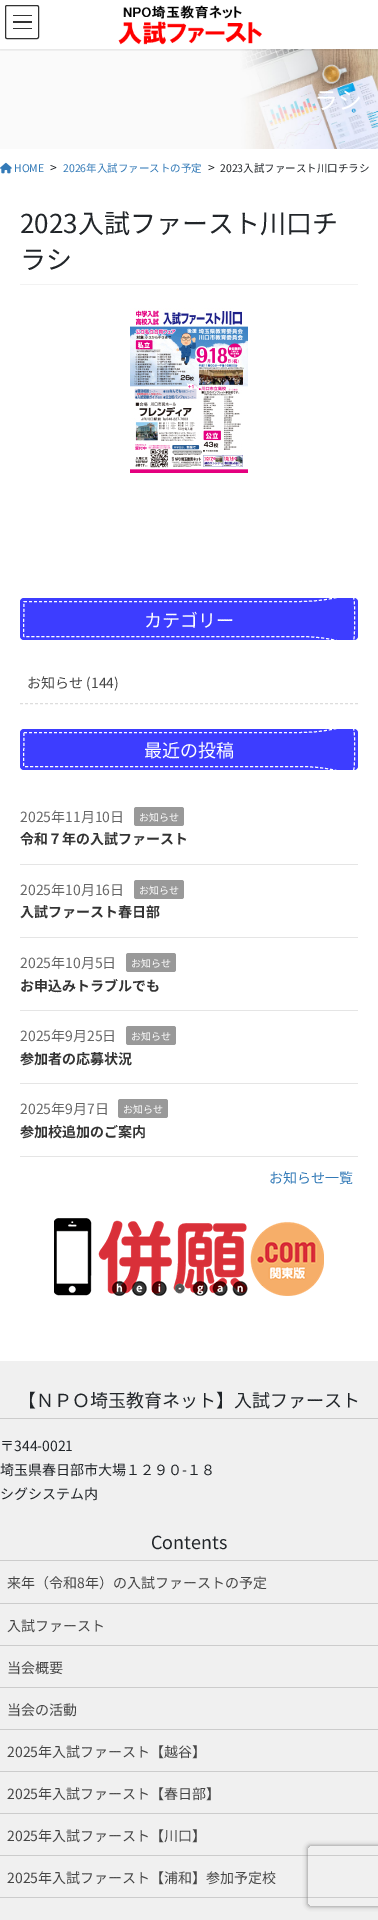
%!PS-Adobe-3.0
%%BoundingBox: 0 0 378 1920
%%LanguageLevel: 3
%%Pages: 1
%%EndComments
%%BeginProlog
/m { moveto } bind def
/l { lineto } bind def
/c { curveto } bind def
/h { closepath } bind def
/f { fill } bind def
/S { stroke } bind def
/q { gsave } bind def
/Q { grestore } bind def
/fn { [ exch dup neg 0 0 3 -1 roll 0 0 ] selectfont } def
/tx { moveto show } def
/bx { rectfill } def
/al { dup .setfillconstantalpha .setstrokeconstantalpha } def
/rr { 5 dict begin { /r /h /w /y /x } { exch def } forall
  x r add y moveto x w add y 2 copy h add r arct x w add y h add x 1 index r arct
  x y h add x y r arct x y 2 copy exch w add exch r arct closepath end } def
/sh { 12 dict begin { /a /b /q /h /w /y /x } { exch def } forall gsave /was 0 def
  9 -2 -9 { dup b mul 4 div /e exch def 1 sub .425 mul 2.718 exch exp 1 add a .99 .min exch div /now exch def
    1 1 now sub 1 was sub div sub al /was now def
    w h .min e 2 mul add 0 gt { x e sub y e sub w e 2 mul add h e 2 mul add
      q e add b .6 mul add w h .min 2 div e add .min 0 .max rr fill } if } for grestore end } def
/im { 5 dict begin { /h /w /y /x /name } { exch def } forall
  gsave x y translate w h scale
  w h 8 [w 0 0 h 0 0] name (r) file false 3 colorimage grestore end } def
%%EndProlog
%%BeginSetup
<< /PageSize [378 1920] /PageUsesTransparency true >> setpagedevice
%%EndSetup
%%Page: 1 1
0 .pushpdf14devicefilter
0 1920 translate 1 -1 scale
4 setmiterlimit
1 setgray
0 0 378 1920 bx
(image1.raw) 0 49 378 100 im
q
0 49 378 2 rectclip
0 setgray
0 1 378 49 0 1.5 0.1 sh
Q
(image0.raw) 118 5 144 40 im
0.2 setgray
13 15 19 1 bx
13 21 19 2 bx
13 28 19 1 bx
5.5 5.5 33 33 1.5 rr S
/NotoSansJP-Regular 24 fn
1 setgray
(ラシ) 314 109 tx
(image2.raw) 0 162 12 12 im
/NotoSansJP-Regular 10.5 fn
0.2 0.478 0.718 setrgbcolor
(HOME) 14 172 tx
/NotoSansJP-Regular 12 fn
0.129 0.145 0.161 setrgbcolor
(>) 50 172 tx
/NotoSansJP-Regular 10.5 fn
0.2 0.478 0.718 setrgbcolor
(2026年入試ファーストの予定) 63 172 tx
/NotoSansJP-Regular 12 fn
0.129 0.145 0.161 setrgbcolor
(>) 208 172 tx
/NotoSansJP-Regular 10.5 fn
(2023入試ファースト川口チラシ) 220 172 tx
0.949 setgray
20 284 338 1 bx
/NotoSansJP-Regular 26 fn
0.129 0.145 0.161 setrgbcolor
(2023入試ファースト川口チ) 20 233 tx
(ラシ) 20 269 tx
(image3.raw) 130 308 118 165 im
0.239 0.239 1 setrgbcolor
20 598 338 42 4 rr f
1 setgray
[3 2] 0 setdash
24 601.5 m 299 601.5 l 349 601.5 354.5 583.5 354.5 607.5 c 354.5 630.5 l 354.5 654.5 349 636.5 299 636.5 c 24 636.5 l 23.5 636 l h S
/NotoSansJP-Regular 18 fn
(カテゴリー) 144 627 tx
0.867 setgray
20 703.5 m 358 703.5 l S
/NotoSansJP-Regular 14 fn
0.275 setgray
(お知らせ \(144\)) 27 688 tx
0.239 0.239 1 setrgbcolor
20 729 338 41 4 rr f
1 setgray
24 732.5 m 299 732.5 l 348.5 732.5 354.5 714.5 354.5 738.5 c 354.5 760.5 l 354.5 784.5 348.5 766.5 299 766.5 c 24 766.5 l 23.5 766 l h S
/NotoSansJP-Regular 18 fn
(最近の投稿) 144 757 tx
0.898 setgray
20 864 338 1 bx
/NotoSansJP-Regular 14 fn
0.4 setgray
(2025年11月10日) 20 822 tx
0.6 setgray
134 807 50 19 2.5 rr f
/NotoSansJP-Regular 10 fn
1 setgray
(お知らせ) 139 821 tx
/NotoSansJP-Bold 14 fn
0.2 setgray
(令和７年の入試ファースト) 20 844 tx
0.898 setgray
20 937 338 1 bx
/NotoSansJP-Regular 14 fn
0.4 setgray
(2025年10月16日) 20 895 tx
0.6 setgray
134 880 50 19 2.5 rr f
/NotoSansJP-Regular 10 fn
1 setgray
(お知らせ) 139 894 tx
/NotoSansJP-Bold 14 fn
0.2 setgray
(入試ファースト春日部) 20 917 tx
0.898 setgray
20 1010 338 1 bx
/NotoSansJP-Regular 14 fn
0.4 setgray
(2025年10月5日) 20 968 tx
0.6 setgray
126 953 50 19 2.5 rr f
/NotoSansJP-Regular 10 fn
1 setgray
(お知らせ) 131 967 tx
/NotoSansJP-Bold 14 fn
0.2 setgray
(お申込みトラブルでも) 20 991 tx
0.898 setgray
20 1083 338 1 bx
/NotoSansJP-Regular 14 fn
0.4 setgray
(2025年9月25日) 20 1041 tx
0.6 setgray
126 1026 50 19 2.5 rr f
/NotoSansJP-Regular 10 fn
1 setgray
(お知らせ) 131 1040 tx
/NotoSansJP-Bold 14 fn
0.2 setgray
(参加者の応募状況) 20 1064 tx
0.898 setgray
20 1156 338 1 bx
/NotoSansJP-Regular 14 fn
0.4 setgray
(2025年9月7日) 20 1114 tx
0.6 setgray
118 1099 50 19 2.5 rr f
/NotoSansJP-Regular 10 fn
1 setgray
(お知らせ) 123 1113 tx
/NotoSansJP-Bold 14 fn
0.2 setgray
(参加校追加のご案内) 20 1137 tx
/NotoSansJP-Regular 14 fn
0.2 0.478 0.718 setrgbcolor
(お知らせ一覧) 269 1183 tx
(image4.raw) 54 1218 270 78 im
0.941 setgray
0 1361 378 559 bx
0.8 setgray
0 1418 378 1 bx
/NotoSansJP-Regular 18 fn
0.129 0.145 0.161 setrgbcolor
(【ＮＰＯ埼玉教育ネット】入試ファースト) 18 1407 tx
/NotoSansJP-Regular 14 fn
(〒344-0021) 0 1451 tx
(埼玉県春日部市大場１２９０-１８) 0 1475 tx
(シグシステム内) 0 1499 tx
0.8 setgray
0 1560 378 1 bx
/NotoSansJP-Regular 18 fn
0.129 0.145 0.161 setrgbcolor
(Contents) 151 1549 tx
0.8 setgray
0 1603 378 1 bx
/NotoSansJP-Regular 14 fn
0.275 setgray
(来年（令和8年）の入試ファーストの予定) 7 1588 tx
0.8 setgray
0 1645 378 1 bx
0.275 setgray
(入試ファースト) 7 1631 tx
0.8 setgray
0 1687 378 1 bx
0.275 setgray
(当会概要) 7 1673 tx
0.8 setgray
0 1729 378 1 bx
0.275 setgray
(当会の活動) 7 1715 tx
0.8 setgray
0 1771 378 1 bx
0.275 setgray
(2025年入試ファースト【越谷】) 7 1757 tx
0.8 setgray
0 1813 378 1 bx
0.275 setgray
(2025年入試ファースト【春日部】) 7 1799 tx
0.8 setgray
0 1855 378 1 bx
0.275 setgray
(2025年入試ファースト【川口】) 7 1841 tx
0.8 setgray
0 1897 378 1 bx
0.275 setgray
(2025年入試ファースト【浦和】参加予定校) 7 1883 tx
q
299 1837 m 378 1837 l 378 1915 l 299 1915 l h 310 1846 m 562 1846 l 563 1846 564 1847 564 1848 c 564 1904 l 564 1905 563 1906 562 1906 c 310 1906 l 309 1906 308 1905 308 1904 c 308 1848 l 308 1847 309 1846 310 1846 c h eoclip newpath
0.502 setgray
308 1846 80 60 2 2.5 1 sh
Q
.poppdf14devicefilter showpage
%%EOF
